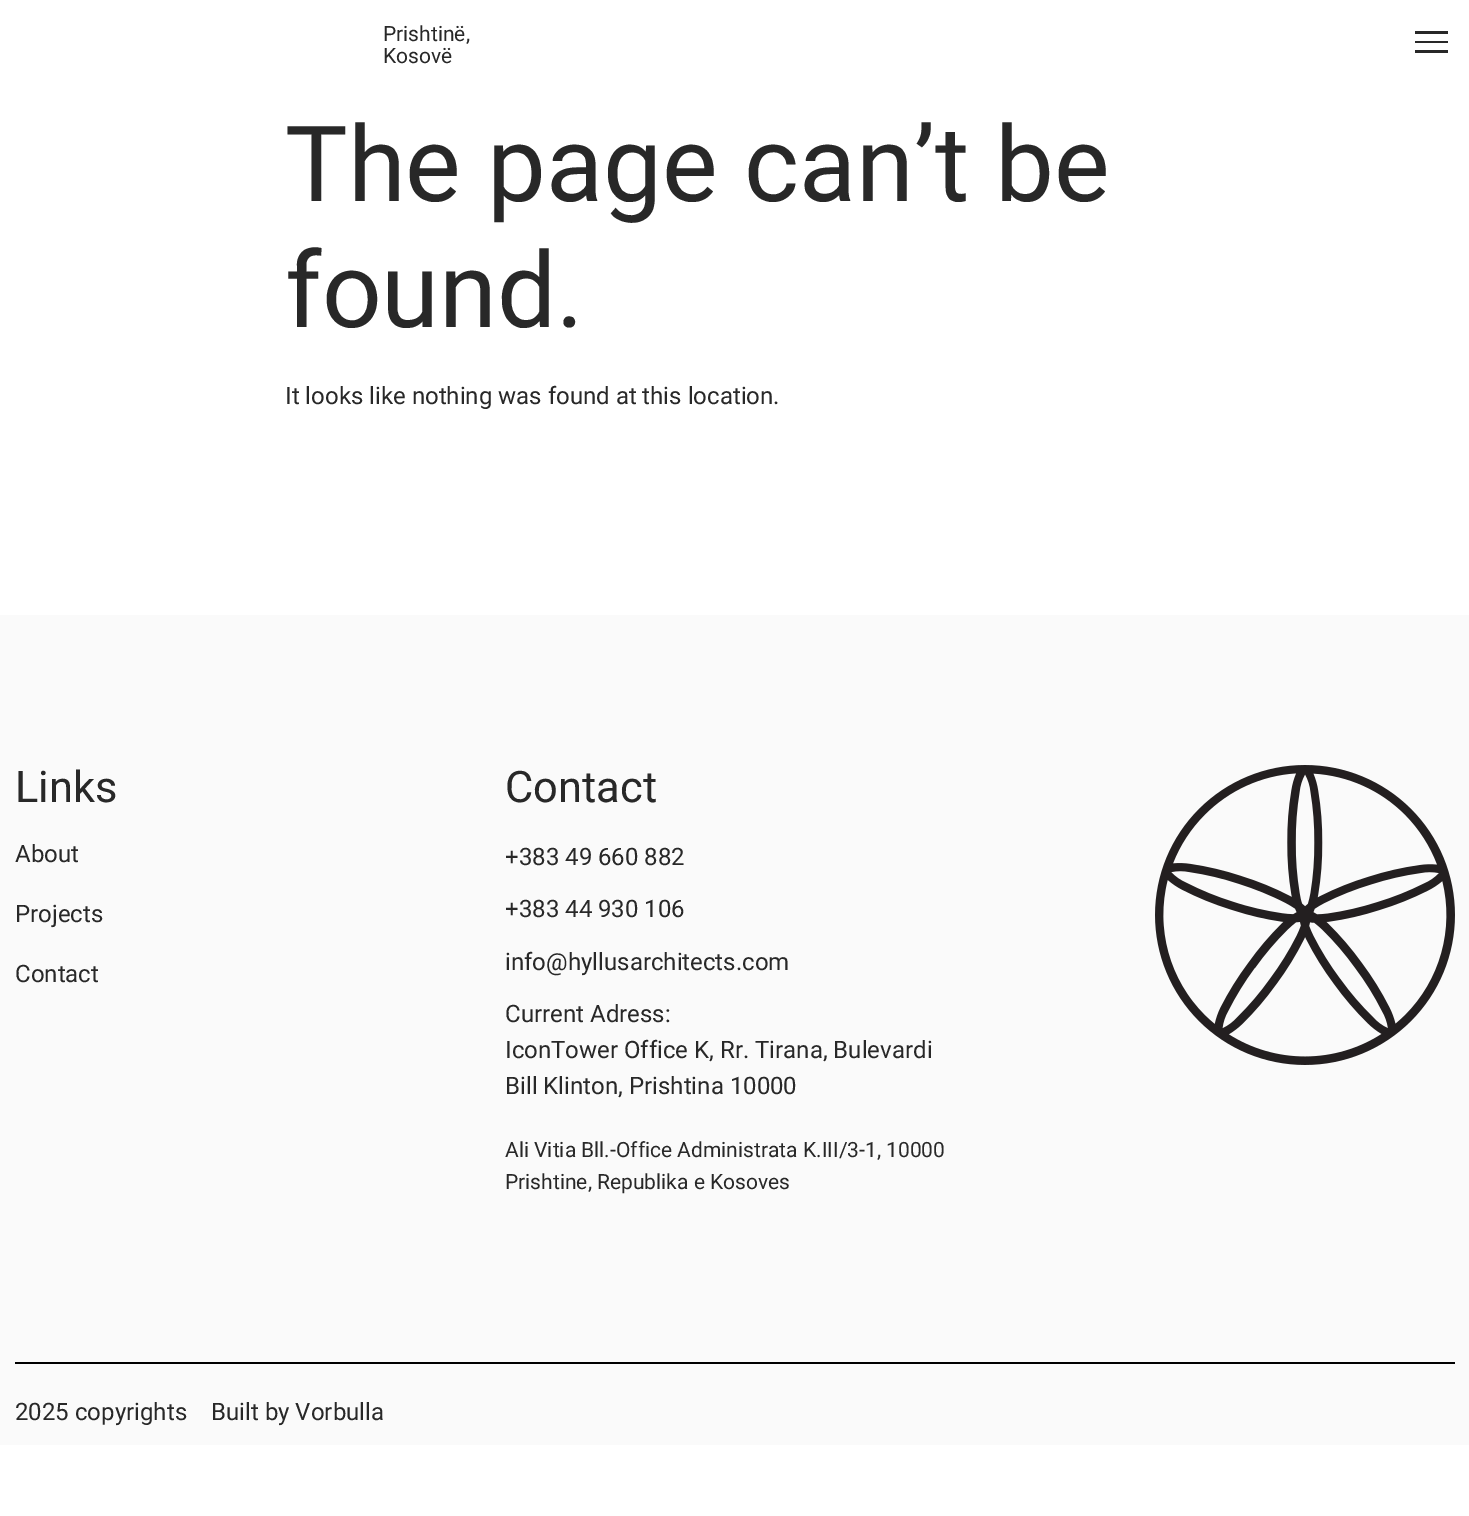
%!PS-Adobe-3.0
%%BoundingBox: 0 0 1469 1516
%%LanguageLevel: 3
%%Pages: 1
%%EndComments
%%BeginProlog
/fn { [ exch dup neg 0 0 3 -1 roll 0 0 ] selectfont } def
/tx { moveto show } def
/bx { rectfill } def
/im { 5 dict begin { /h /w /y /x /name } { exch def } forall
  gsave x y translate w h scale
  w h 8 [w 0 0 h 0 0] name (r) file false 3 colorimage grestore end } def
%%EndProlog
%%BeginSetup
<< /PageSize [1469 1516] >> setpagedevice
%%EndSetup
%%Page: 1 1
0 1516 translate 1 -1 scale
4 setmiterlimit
1 setgray
0 0 1469 1516 bx
/Roboto-Regular 21 fn
0.157 setgray
(Prishtinë,) 383 41 tx
(Kosovë) 383 63 tx
1415 31 33 3 bx
1415 41 33 2 bx
1415 50 33 3 bx
/Roboto-Regular 105 fn
(The page can’t be) 285 201 tx
(found.) 285 327 tx
/Roboto-Regular 24 fn
(It looks like nothing was found at this location.) 285 404 tx
0.98 setgray
0 615 1469 830 bx
/Roboto-Regular 43.5 fn
0.157 setgray
(Links) 15 802 tx
/Roboto-Regular 24 fn
(About) 15 862 tx
(Projects) 15 922 tx
(Contact) 15 982 tx
/Roboto-Regular 43.5 fn
(Contact) 505 802 tx
/Roboto-Regular 24 fn
(+383 49 660 882) 505 865 tx
(+383 44 930 106) 505 917 tx
(info@hyllusarchitects.com) 505 970 tx
(Current Adress:) 505 1022 tx
(IconTower Office K, Rr. Tirana, Bulevardi) 505 1058 tx
(Bill Klinton, Prishtina 10000) 505 1094 tx
/Roboto-Regular 21 fn
(Ali Vitia Bll.-Office Administrata K.III/3-1, 10000) 505 1157 tx
(Prishtine, Republika e Kosoves) 505 1189 tx
(image0.raw) 1155 765 300 300 im
0 setgray
15 1362 1440 2 bx
/Roboto-Regular 24 fn
0.157 setgray
(2025 copyrights) 15 1420 tx
(Built by Vorbulla) 211 1420 tx
showpage
%%EOF
